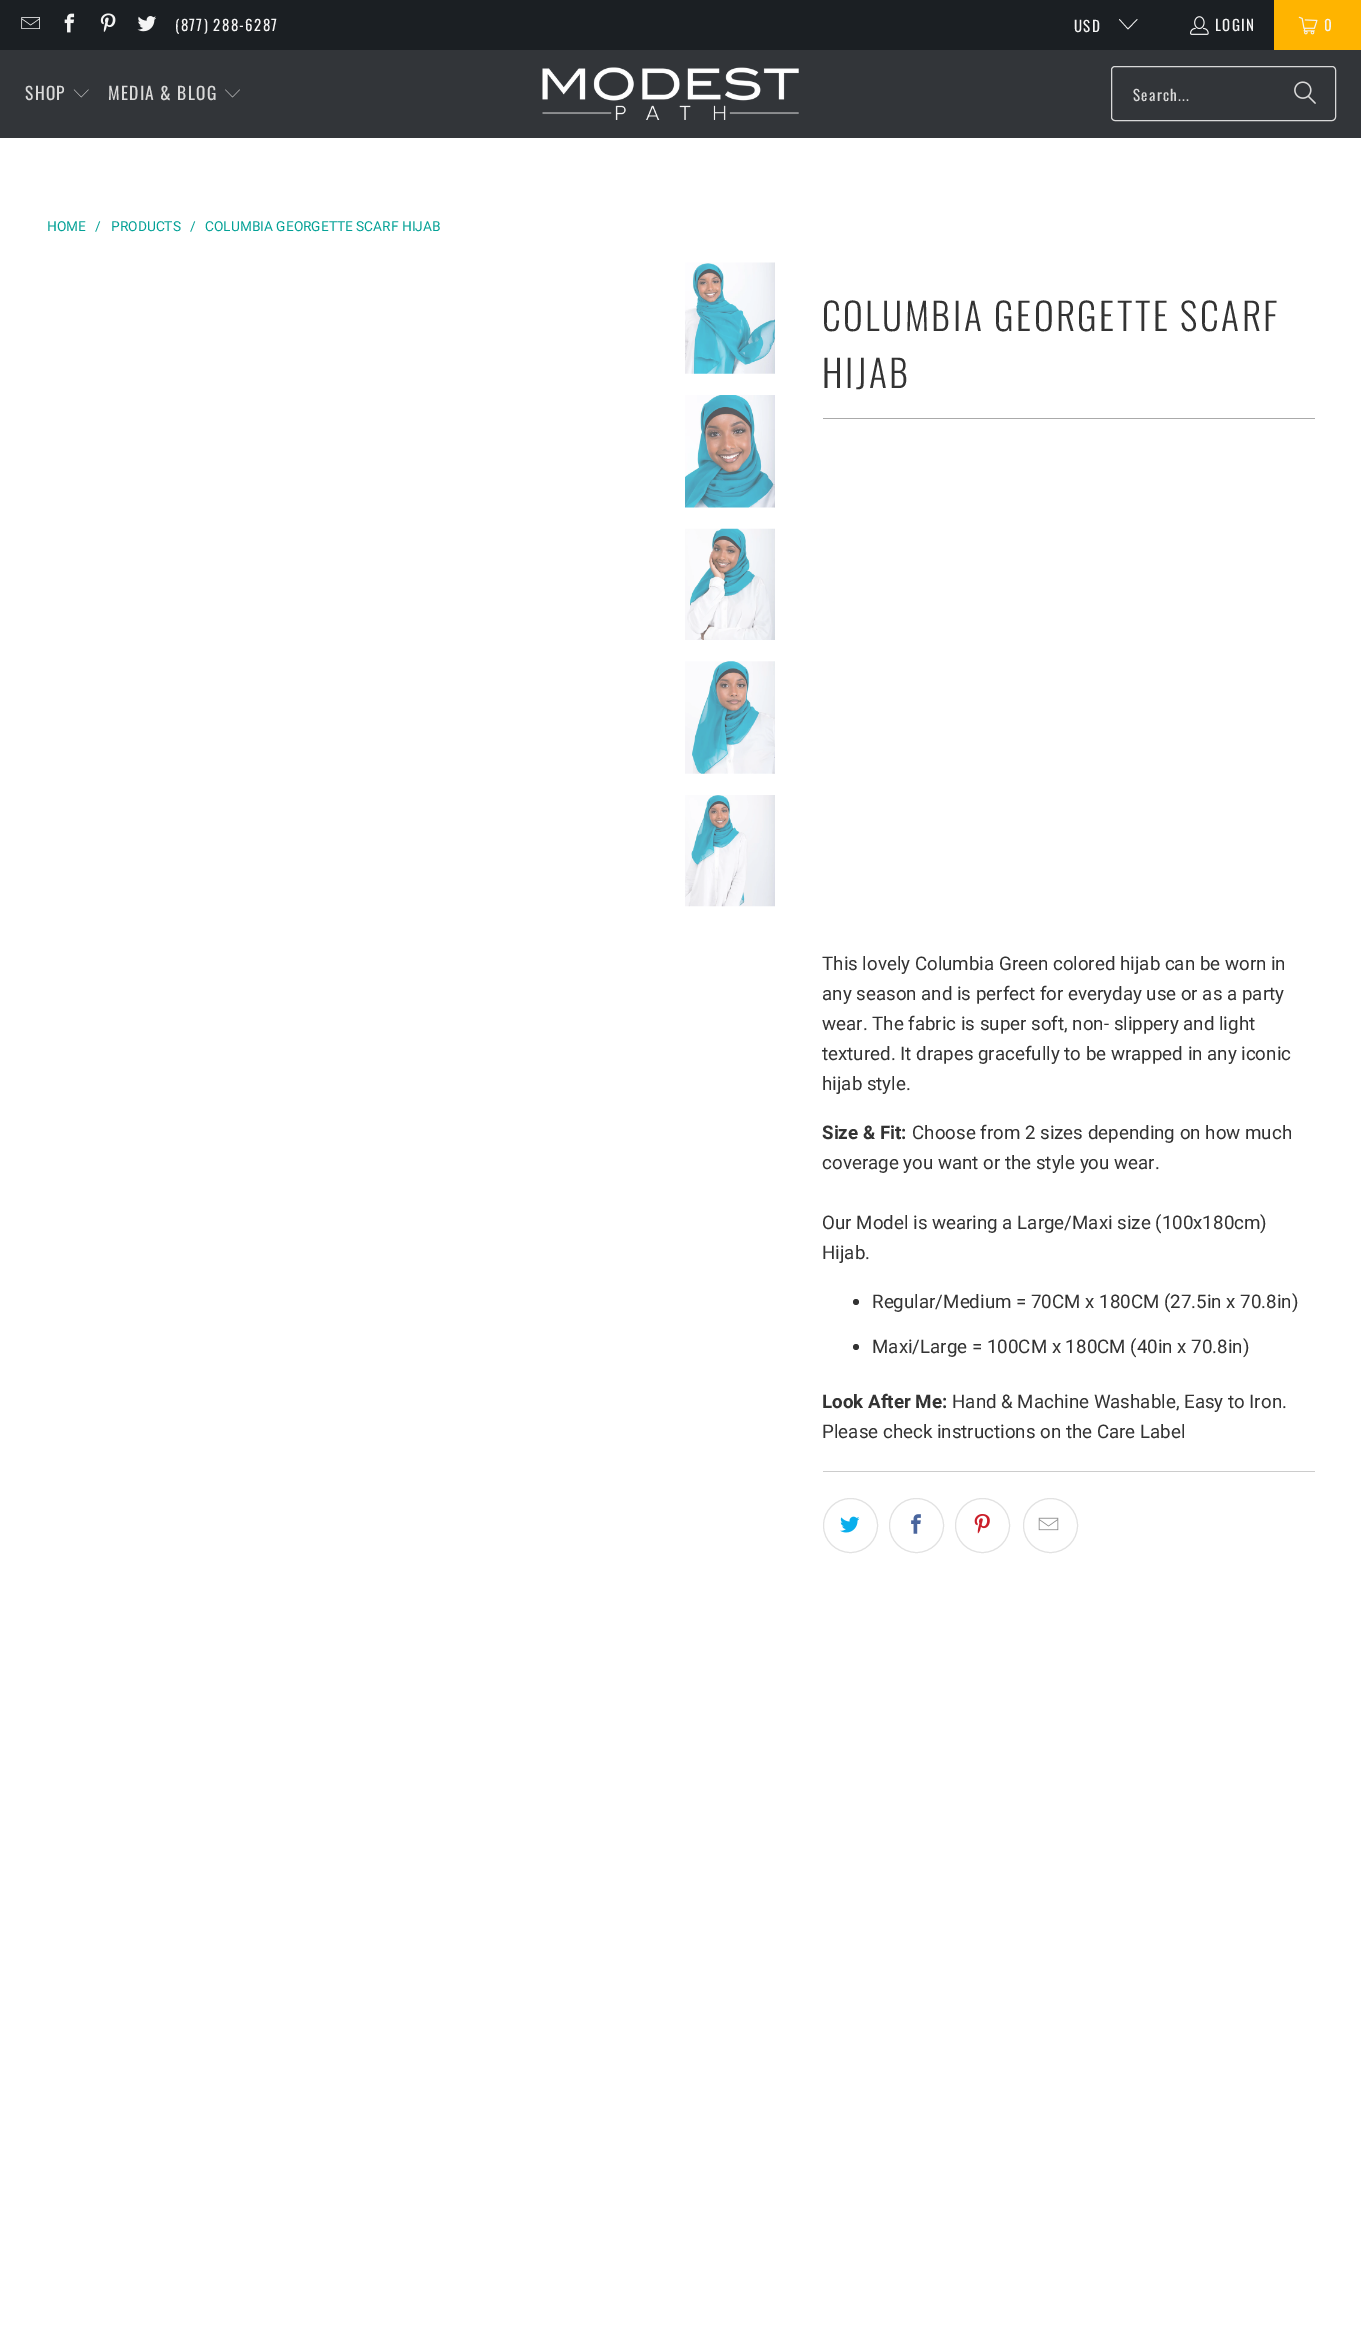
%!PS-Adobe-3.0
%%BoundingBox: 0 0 1361 2327
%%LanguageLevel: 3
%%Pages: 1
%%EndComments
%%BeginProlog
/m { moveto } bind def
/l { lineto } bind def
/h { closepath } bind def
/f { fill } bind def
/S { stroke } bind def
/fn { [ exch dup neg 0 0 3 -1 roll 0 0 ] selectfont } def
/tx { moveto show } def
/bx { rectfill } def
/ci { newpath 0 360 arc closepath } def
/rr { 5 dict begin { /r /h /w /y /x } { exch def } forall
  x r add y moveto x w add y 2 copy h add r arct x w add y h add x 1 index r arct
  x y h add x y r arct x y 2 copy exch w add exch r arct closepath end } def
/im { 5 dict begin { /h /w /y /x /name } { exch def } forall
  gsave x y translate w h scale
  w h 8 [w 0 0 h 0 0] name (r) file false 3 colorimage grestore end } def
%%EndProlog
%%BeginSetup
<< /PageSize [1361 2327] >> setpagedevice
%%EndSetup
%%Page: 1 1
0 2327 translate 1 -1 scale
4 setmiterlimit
1 setgray
0 0 1361 2327 bx
0.106 0.122 0.137 setrgbcolor
0 0 1274 50 bx
(image0.raw) 21 17 19 12 im
(image1.raw) 64 13 11 20 im
(image2.raw) 100 13 16 19 im
(image3.raw) 137 16 20 16 im
/Oswald-Regular 15 fn
0.957 setgray
175 31 m 1.25 0 (\(877\) 288-6287) ashow
1074 32 m 1.25 0 (USD) ashow
1128 29.5 m 1119 19.5 l 1119.5 19 l 1128 28.5 l 1137 19 l 1137.5 19.5 l h f
(image4.raw) 1190 16 19 19 im
1215 31 m 1.25 0 (LOGIN) ashow
1 0.706 0 setrgbcolor
1274 0 87 50 bx
(image5.raw) 1298 16 20 19 im
0.957 setgray
1324 31 m 1.25 0 (0) ashow
0.196 0.208 0.224 setrgbcolor
0 50 1361 88 bx
/Oswald-Regular 17.5 fn
0.851 setgray
25 100 m 1.25 0 (SHOP) ashow
(image6.raw) 73 89 16 9 im
108 100 m 1.25 0 (MEDIA & BLOG) ashow
(image7.raw) 225 89 15 9 im
(image8.raw) 542 67 257 53 im
1111.5 66.5 224 54 3.5 rr S
/Oswald-Regular 15 fn
1133 101 m 1.25 0 (Search...) ashow
(image9.raw) 1294 81 22 23 im
/Roboto-Regular 13.75 fn
0.012 0.631 0.588 setrgbcolor
(HOME) 47 231 tx
(/) 95 231 tx
(PRODUCTS) 111 231 tx
(/) 190 231 tx
(COLUMBIA GEORGETTE SCARF HIJAB) 205 231 tx
(image10.raw) 685 262 90 112 im
(image11.raw) 685 395 90 113 im
(image12.raw) 685 528 90 112 im
(image13.raw) 685 661 90 113 im
(image14.raw) 685 795 90 112 im
/Oswald-Light 37.5 fn
0.2 setgray
822 331 m 2.5 0 (COLUMBIA GEORGETTE SCARF) ashow
822 388 m 2.5 0 (HIJAB) ashow
0.667 setgray
823 418 492 1 bx
/Roboto-Regular 18.75 fn
0.2 setgray
(This lovely Columbia Green colored hijab can be worn in) 822 970 tx
(any season and is perfect for everyday use or as a party) 822 1000 tx
(wear. The fabric is super soft, non- slippery and light) 822 1030 tx
(textured. It drapes gracefully to be wrapped in any iconic) 822 1060 tx
(hijab style.) 822 1090 tx
/Roboto-Bold 18.75 fn
(Size & Fit:) 822 1139 tx
/Roboto-Regular 18.75 fn
(Choose from 2 sizes depending on how much) 912 1139 tx
(coverage you want or the style you wear.) 822 1169 tx
(Our Model is wearing a Large/Maxi size \(100x180cm\)) 822 1229 tx
(Hijab.) 822 1259 tx
856 1302 3 ci f
(Regular/Medium = 70CM x 180CM \(27.5in x 70.8in\)) 872 1308 tx
856 1347 3 ci f
(Maxi/Large = 100CM x 180CM \(40in x 70.8in\)) 872 1353 tx
/Roboto-Bold 18.75 fn
(Look After Me:) 822 1408 tx
/Roboto-Regular 18.75 fn
(Hand & Machine Washable, Easy to Iron.) 952 1408 tx
(Please check instructions on the Care Label) 822 1438 tx
0.8 setgray
823 1471 492 1 bx
0.886 setgray
850.5 1525.5 27 ci S
(image15.raw) 840 1516 20 17 im
916.5 1525.5 27 ci S
(image16.raw) 911 1514 10 20 im
982.5 1525.5 27 ci S
(image17.raw) 974 1514 16 20 im
1050.5 1525.5 27 ci S
(image18.raw) 1038 1517 21 14 im
showpage
%%EOF
